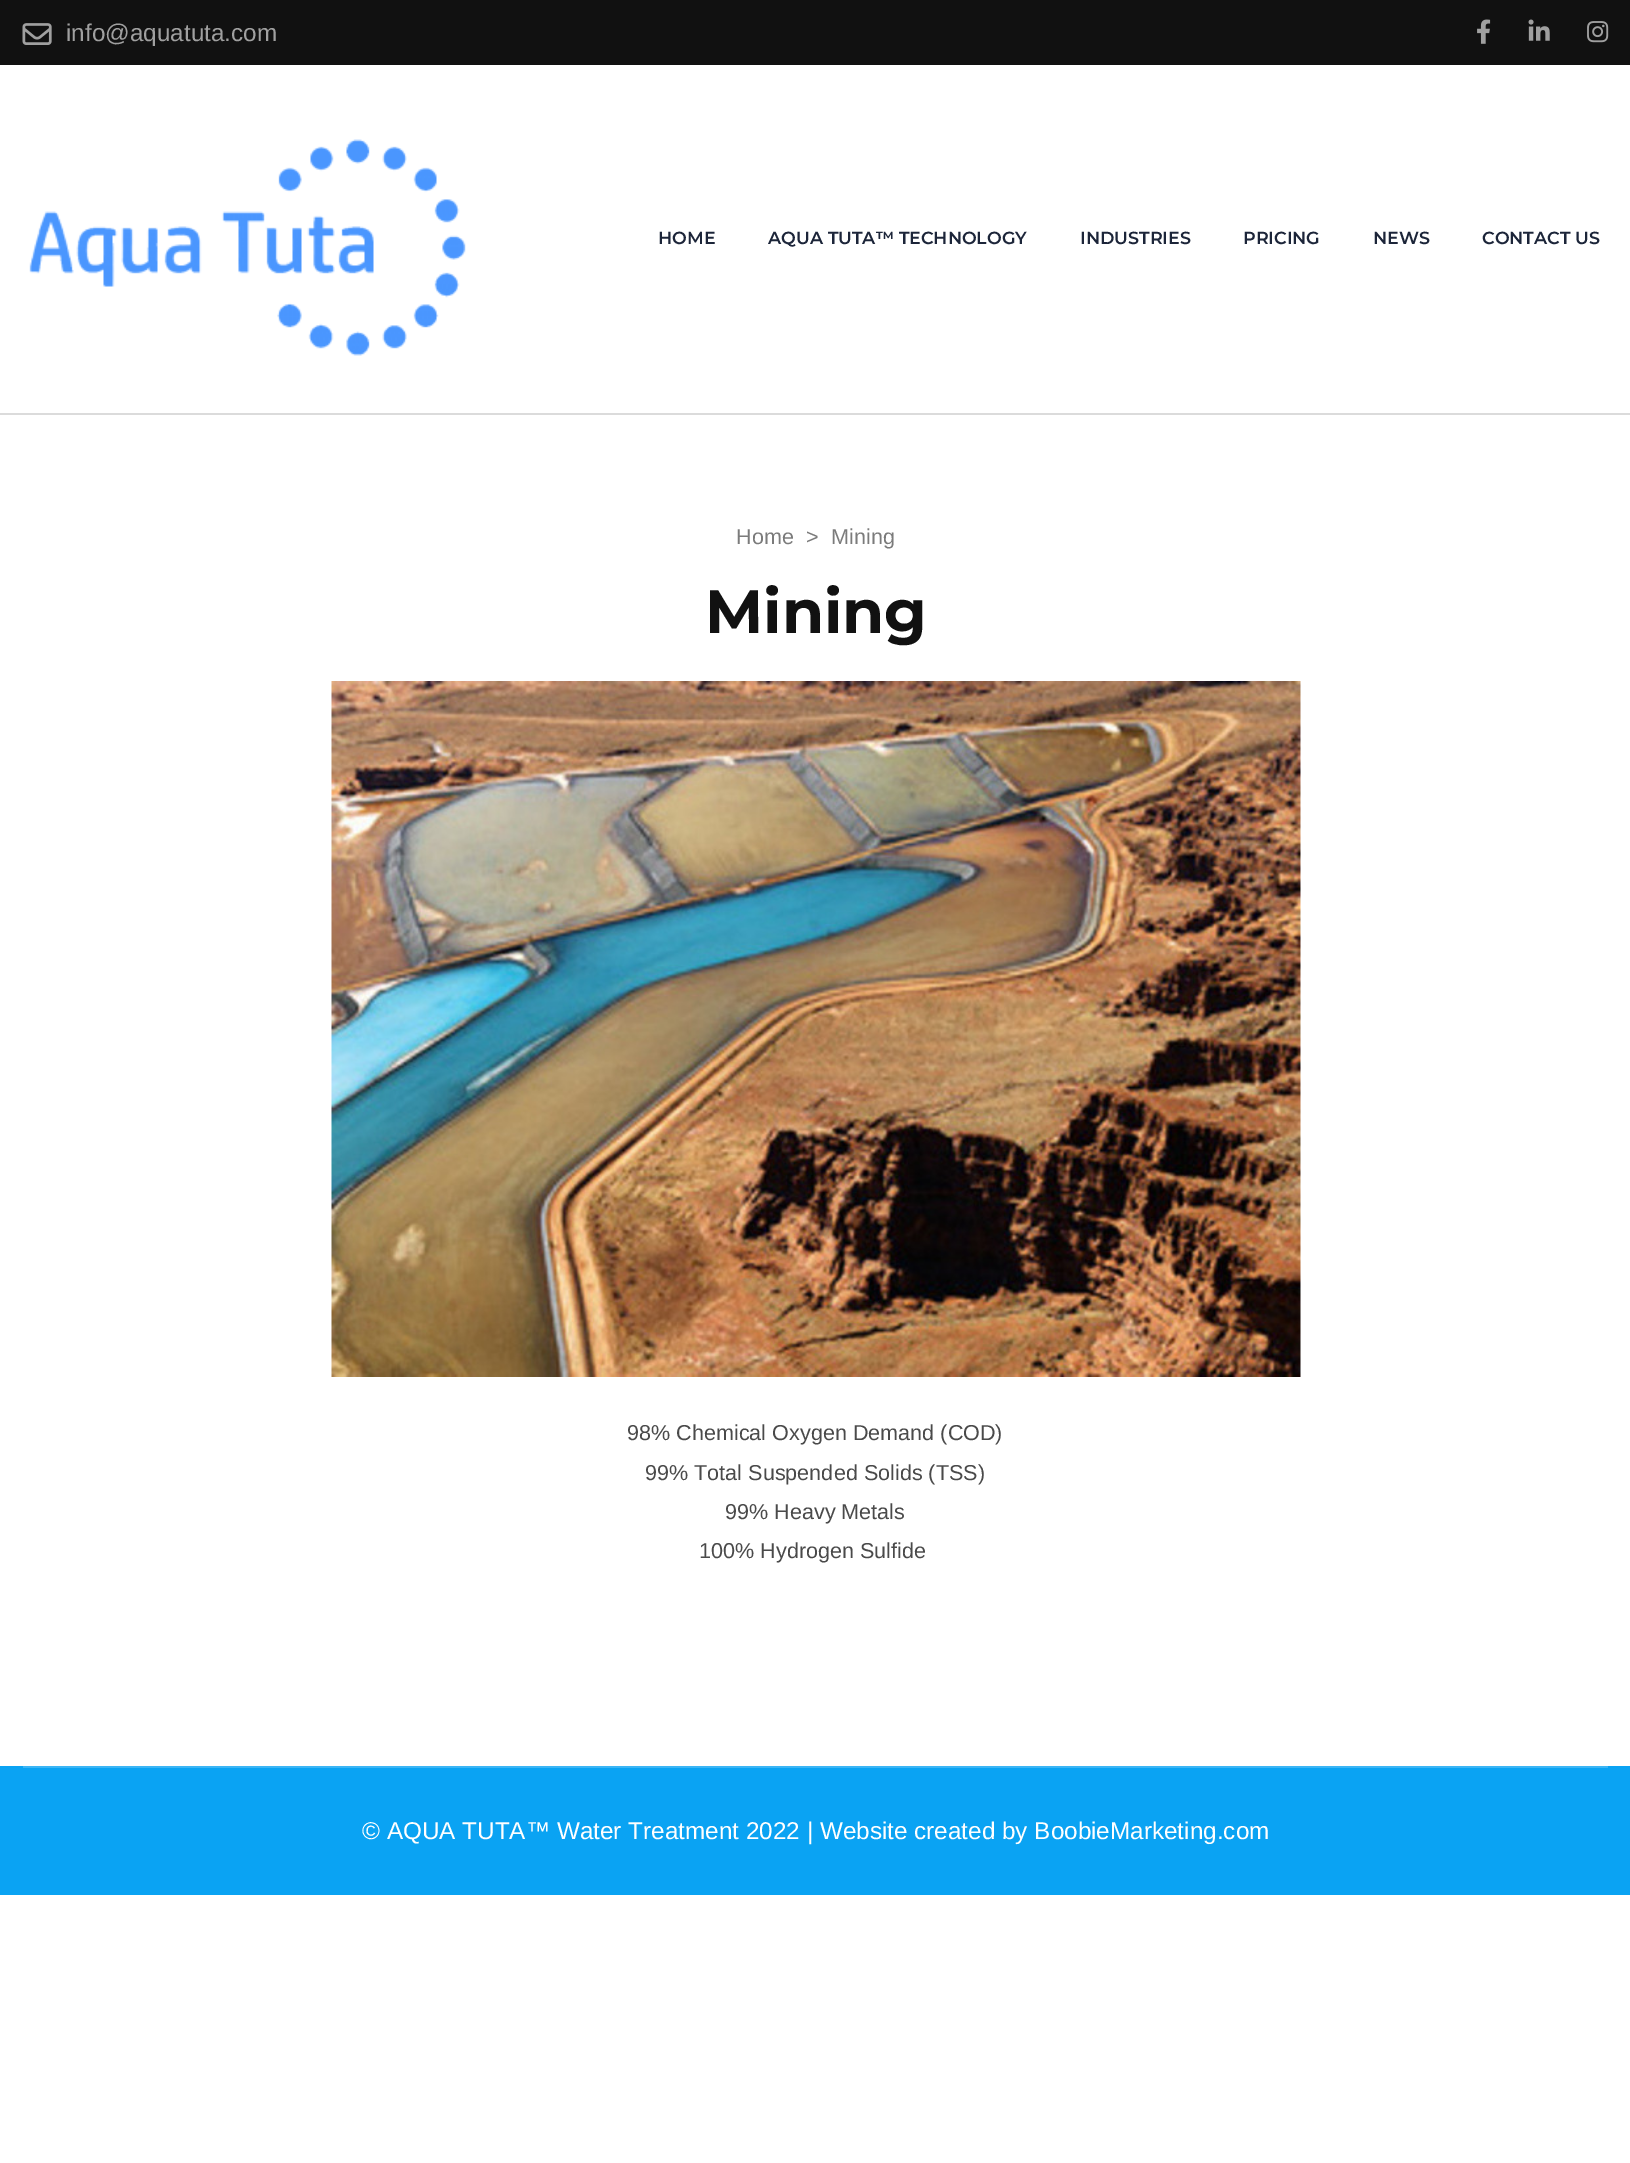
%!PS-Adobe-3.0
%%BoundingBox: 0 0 1630 2163
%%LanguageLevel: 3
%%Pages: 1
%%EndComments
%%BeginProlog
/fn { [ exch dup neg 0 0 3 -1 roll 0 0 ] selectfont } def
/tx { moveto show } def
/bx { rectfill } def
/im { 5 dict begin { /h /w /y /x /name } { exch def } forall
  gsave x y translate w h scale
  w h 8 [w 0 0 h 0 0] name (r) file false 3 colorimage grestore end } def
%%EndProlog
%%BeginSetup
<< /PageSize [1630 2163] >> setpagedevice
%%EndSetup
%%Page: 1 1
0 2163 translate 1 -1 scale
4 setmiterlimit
1 setgray
0 0 1630 2163 bx
0.067 setgray
0 0 1630 65 bx
(image0.raw) 22 23 30 22 im
/LiberationSans-Regular 24.3 fn
0.627 setgray
(info@aquatuta.com) 66 41 tx
(image1.raw) 1477 19 14 25 im
(image2.raw) 1528 19 22 22 im
(image3.raw) 1587 21 22 22 im
0.859 setgray
0 413 1630 2 bx
(image4.raw) 29 139 437 217 im
/Montserrat-SemiBold 17.5 fn
0.11 0.145 0.224 setrgbcolor
(HOME) 658 244 tx
(AQUA TUTA™ TECHNOLOGY) 768 244 tx
(INDUSTRIES) 1080 244 tx
(PRICING) 1243 244 tx
(NEWS) 1373 244 tx
(CONTACT US) 1482 244 tx
/LiberationSans-Regular 21.6 fn
0.482 setgray
(Home) 736 544 tx
(>) 806 544 tx
(Mining) 831 544 tx
/Montserrat-Bold 61 fn
0.067 setgray
(Mining) 705 633 tx
(image5.raw) 331 681 970 696 im
/LiberationSans-Regular 21.6 fn
0.29 setgray
(98% Chemical Oxygen Demand \(COD\)) 627 1440 tx
(99% Total Suspended Solids \(TSS\)) 645 1480 tx
(99% Heavy Metals) 725 1519 tx
(100% Hydrogen Sulfide) 699 1558 tx
0.039 0.639 0.953 setrgbcolor
0 1766 1630 129 bx
0.231 0.71 0.961 setrgbcolor
23 1766 1585 2 bx
/LiberationSans-Regular 24.3 fn
1 setgray
(© AQUA TUTA™ Water Treatment 2022 | Website created by BoobieMarketing.com) 362 1839 tx
showpage
%%EOF
